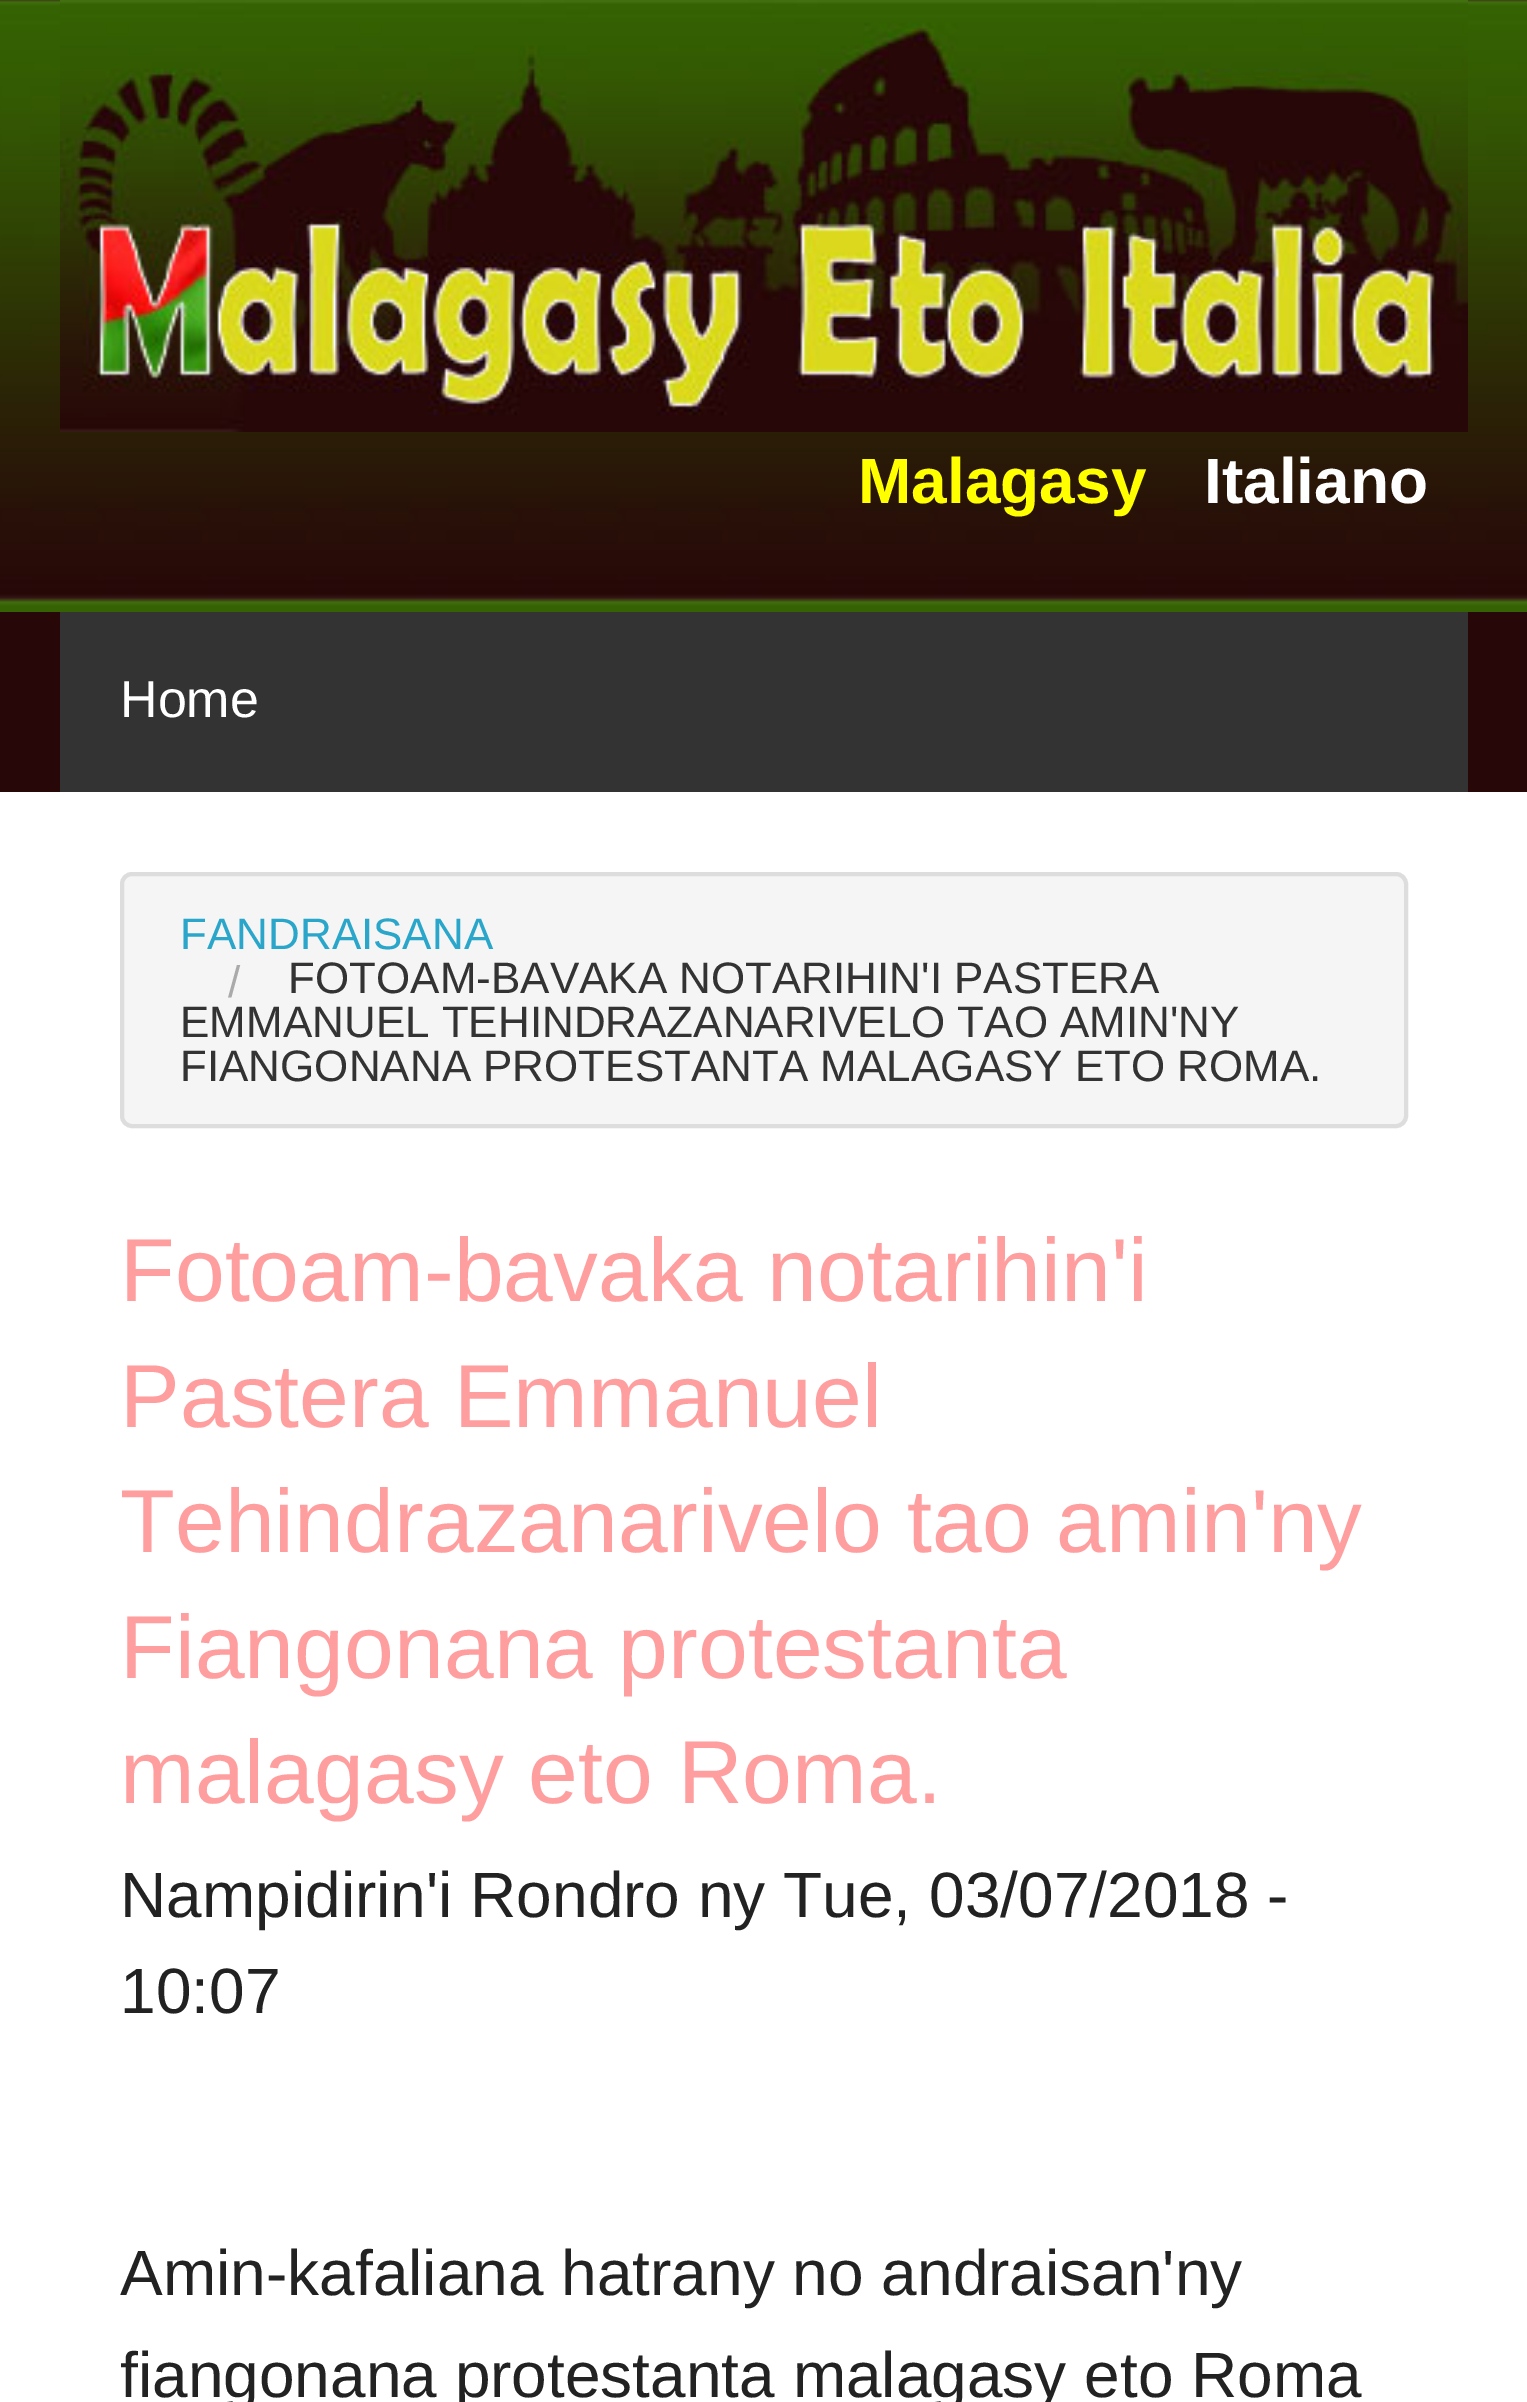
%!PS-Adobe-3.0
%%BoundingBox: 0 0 1527 2402
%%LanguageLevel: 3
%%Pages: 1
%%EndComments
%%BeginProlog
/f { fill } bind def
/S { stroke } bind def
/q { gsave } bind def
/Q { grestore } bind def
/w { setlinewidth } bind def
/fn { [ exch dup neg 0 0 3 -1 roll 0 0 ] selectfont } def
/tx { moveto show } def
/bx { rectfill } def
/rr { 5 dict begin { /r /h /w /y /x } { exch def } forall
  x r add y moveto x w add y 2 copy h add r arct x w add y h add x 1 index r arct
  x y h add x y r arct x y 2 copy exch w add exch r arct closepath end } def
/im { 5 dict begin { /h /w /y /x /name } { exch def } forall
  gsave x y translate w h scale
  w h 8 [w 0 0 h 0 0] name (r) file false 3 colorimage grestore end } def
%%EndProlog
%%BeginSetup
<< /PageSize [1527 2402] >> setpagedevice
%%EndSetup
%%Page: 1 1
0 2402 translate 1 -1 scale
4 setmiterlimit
1 setgray
0 0 1527 2402 bx
0.153 0.027 0.031 setrgbcolor
0 612 1527 180 bx
(image0.raw) 0 0 1527 612 im
(image1.raw) 60 0 1408 432 im
/LiberationSans-Bold 64 fn
1 1 0 setrgbcolor
(Malagasy) 858 503 tx
1 setgray
(Italiano) 1204 503 tx
0.2 setgray
60 612 1408 180 bx
/LiberationSans-Regular 52 fn
1 setgray
(Home) 120 717 tx
0.961 setgray
122 874 1284 252 10 rr q f Q
0.867 setgray
4 w
S
/LiberationSans-Regular 44 fn
0.169 0.651 0.796 setrgbcolor
(FANDRAISANA) 180 949 tx
0.667 setgray
(/) 228 997 tx
0.2 setgray
(FOTOAM-BAVAKA NOTARIHIN'I PASTERA) 288 993 tx
(EMMANUEL TEHINDRAZANARIVELO TAO AMIN'NY) 180 1037 tx
(FIANGONANA PROTESTANTA MALAGASY ETO ROMA.) 180 1081 tx
/LiberationSans-Regular 89.6 fn
1 0.62 0.62 setrgbcolor
(Fotoam-bavaka notarihin'i) 120 1301 tx
(Pastera Emmanuel) 120 1427 tx
(Tehindrazanarivelo tao amin'ny) 120 1552 tx
(Fiangonana protestanta) 120 1678 tx
(malagasy eto Roma.) 120 1803 tx
/LiberationSans-Regular 64 fn
0.133 setgray
(Nampidirin'i Rondro ny Tue, 03/07/2018 -) 120 1917 tx
(10:07) 120 2013 tx
(Amin-kafaliana hatrany no andraisan'ny) 120 2295 tx
(fiangonana protestanta malagasy eto Roma) 120 2397 tx
showpage
%%EOF
